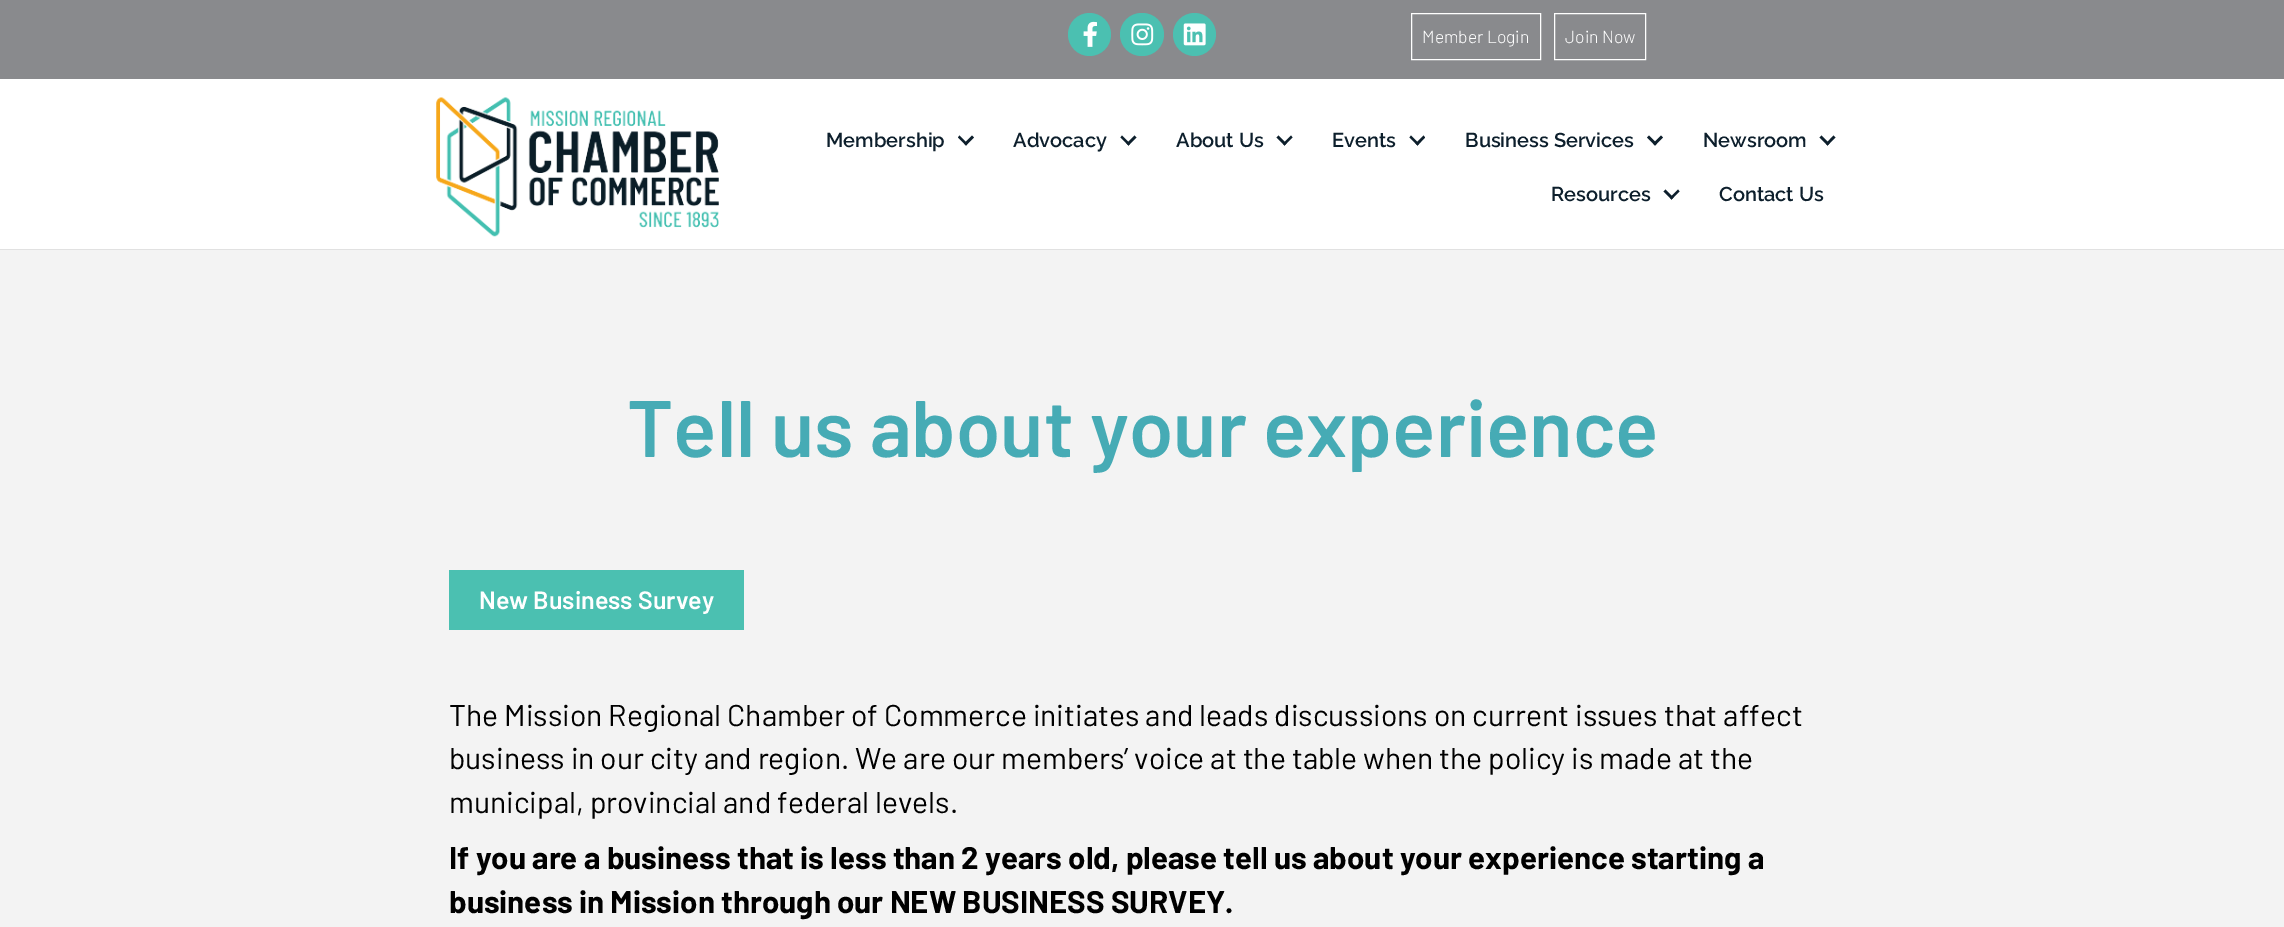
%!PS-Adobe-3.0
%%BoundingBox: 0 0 2284 927
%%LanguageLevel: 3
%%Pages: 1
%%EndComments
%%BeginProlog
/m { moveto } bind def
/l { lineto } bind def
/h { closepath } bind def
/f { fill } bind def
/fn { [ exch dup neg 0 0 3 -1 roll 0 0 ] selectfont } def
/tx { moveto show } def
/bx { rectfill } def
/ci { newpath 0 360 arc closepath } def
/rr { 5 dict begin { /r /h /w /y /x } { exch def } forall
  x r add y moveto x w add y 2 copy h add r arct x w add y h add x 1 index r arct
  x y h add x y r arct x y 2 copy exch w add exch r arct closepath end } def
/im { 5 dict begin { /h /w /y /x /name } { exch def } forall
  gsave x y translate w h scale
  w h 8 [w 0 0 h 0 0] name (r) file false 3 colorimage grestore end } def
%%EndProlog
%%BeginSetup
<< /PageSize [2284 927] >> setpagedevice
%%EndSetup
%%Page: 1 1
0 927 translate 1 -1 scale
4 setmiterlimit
0.537 0.541 0.553 setrgbcolor
0 0 2284 927 bx
0.294 0.753 0.694 setrgbcolor
1089.5 34.5 21.5 ci f
(image0.raw) 1083 21 14 26 im
1120 13 44 43 21.5 rr f
(image1.raw) 1131 23 23 23 im
1194.5 34.5 21.5 ci f
(image2.raw) 1183 23 23 23 im
1 setgray
1411.5 13.5 129 46 rectstroke
/Barlow-Light 17.5 fn
(Member Login) 1422 43 tx
1554.5 13.5 91 46 rectstroke
(Join Now) 1565 43 tx
0 79 2284 170 bx
0.882 setgray
0 249 2284 1 bx
(image3.raw) 436 97 283 140 im
/Raleway-SemiBold 20 fn
0.051 0.122 0.173 setrgbcolor
(Membership) 826 147 tx
972 135.5 m 974 137.5 l 966 145.5 l 964 143.5 l h f
959.5 135.5 m 967.5 143.5 l 966 145.5 l 958 137.5 l h f
(Advocacy) 1013 147 tx
1134.5 135.5 m 1136.5 137.5 l 1128.5 145.5 l 1126.5 143.5 l h f
1122 135.5 m 1130 143.5 l 1128.5 145.5 l 1120.5 137.5 l h f
(About Us) 1176 147 tx
1291 135.5 m 1292.5 137.5 l 1284.5 145.5 l 1283 143.5 l h f
1278.5 135.5 m 1286.5 143.5 l 1284.5 145.5 l 1276.5 137.5 l h f
(Events) 1332 147 tx
1423.5 135.5 m 1425 137.5 l 1417.5 145.5 l 1415.5 143.5 l h f
1411 135.5 m 1419 143.5 l 1417.5 145.5 l 1409.5 137.5 l h f
(Business Services) 1465 147 tx
1661 135.5 m 1663 137.5 l 1655 145.5 l 1653 143.5 l h f
1649 135.5 m 1657 143.5 l 1655 145.5 l 1647 137.5 l h f
(Newsroom) 1703 147 tx
1833.5 135.5 m 1835.5 137.5 l 1827.5 145.5 l 1826 143.5 l h f
1821.5 135.5 m 1829.5 143.5 l 1827.5 145.5 l 1819.5 137.5 l h f
(Resources) 1551 201 tx
1678 189.5 m 1679.5 191.5 l 1671.5 199.5 l 1670 197.5 l h f
1665.5 189.5 m 1673.5 197.5 l 1671.5 199.5 l 1663.5 191.5 l h f
(Contact Us) 1719 201 tx
0.953 setgray
0 250 2284 677 bx
/Barlow-SemiBold 80 fn
0.275 0.671 0.71 setrgbcolor
(Tell us about your experience) 627 457 tx
0.294 0.753 0.694 setrgbcolor
449 570 295 60 bx
/Barlow-SemiBold 25 fn
1 setgray
(New Business Survey) 479 609 tx
/Barlow-Regular 30 fn
0 setgray
(The Mission Regional Chamber of Commerce initiates and leads discussions on current issues that affect) 449 726 tx
(business in our city and region. We are our members’ voice at the table when the policy is made at the) 449 769 tx
(municipal, provincial and federal levels.) 449 813 tx
/Barlow-Bold 31.25 fn
(If you are a business that is less than 2 years old, please tell us about your experience starting a) 449 869 tx
(business in Mission through our NEW BUSINESS SURVEY.) 449 913 tx
showpage
%%EOF
